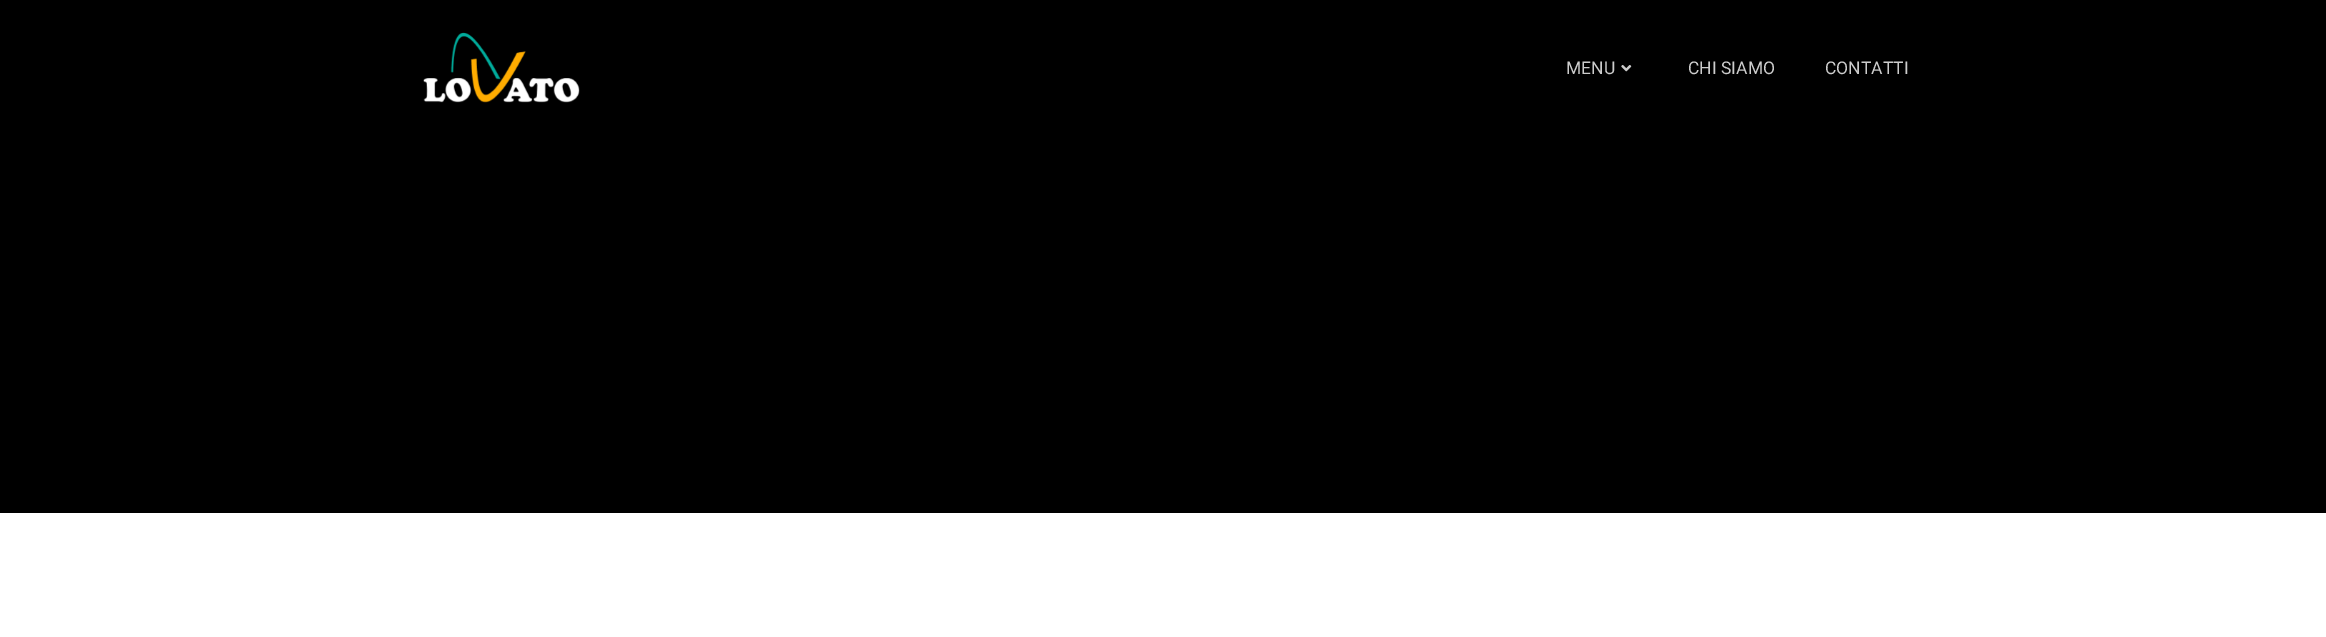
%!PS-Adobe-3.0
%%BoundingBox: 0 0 2326 637
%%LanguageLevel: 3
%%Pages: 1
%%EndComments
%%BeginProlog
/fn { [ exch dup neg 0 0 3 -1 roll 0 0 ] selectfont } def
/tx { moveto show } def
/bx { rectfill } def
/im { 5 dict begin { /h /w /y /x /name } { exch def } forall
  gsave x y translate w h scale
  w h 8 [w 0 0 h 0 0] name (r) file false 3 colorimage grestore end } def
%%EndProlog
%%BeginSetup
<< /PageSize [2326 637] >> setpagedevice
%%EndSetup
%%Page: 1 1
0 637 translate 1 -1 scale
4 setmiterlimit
1 setgray
0 0 2326 637 bx
0 setgray
0 0 2326 513 bx
(image0.raw) 423 32 157 71 im
/Roboto-Regular 17.5 fn
0.8 setgray
(MENU) 1566 74 tx
(image1.raw) 1621 65 11 7 im
(CHI SIAMO) 1688 74 tx
(CONTATTI) 1825 74 tx
showpage
%%EOF
